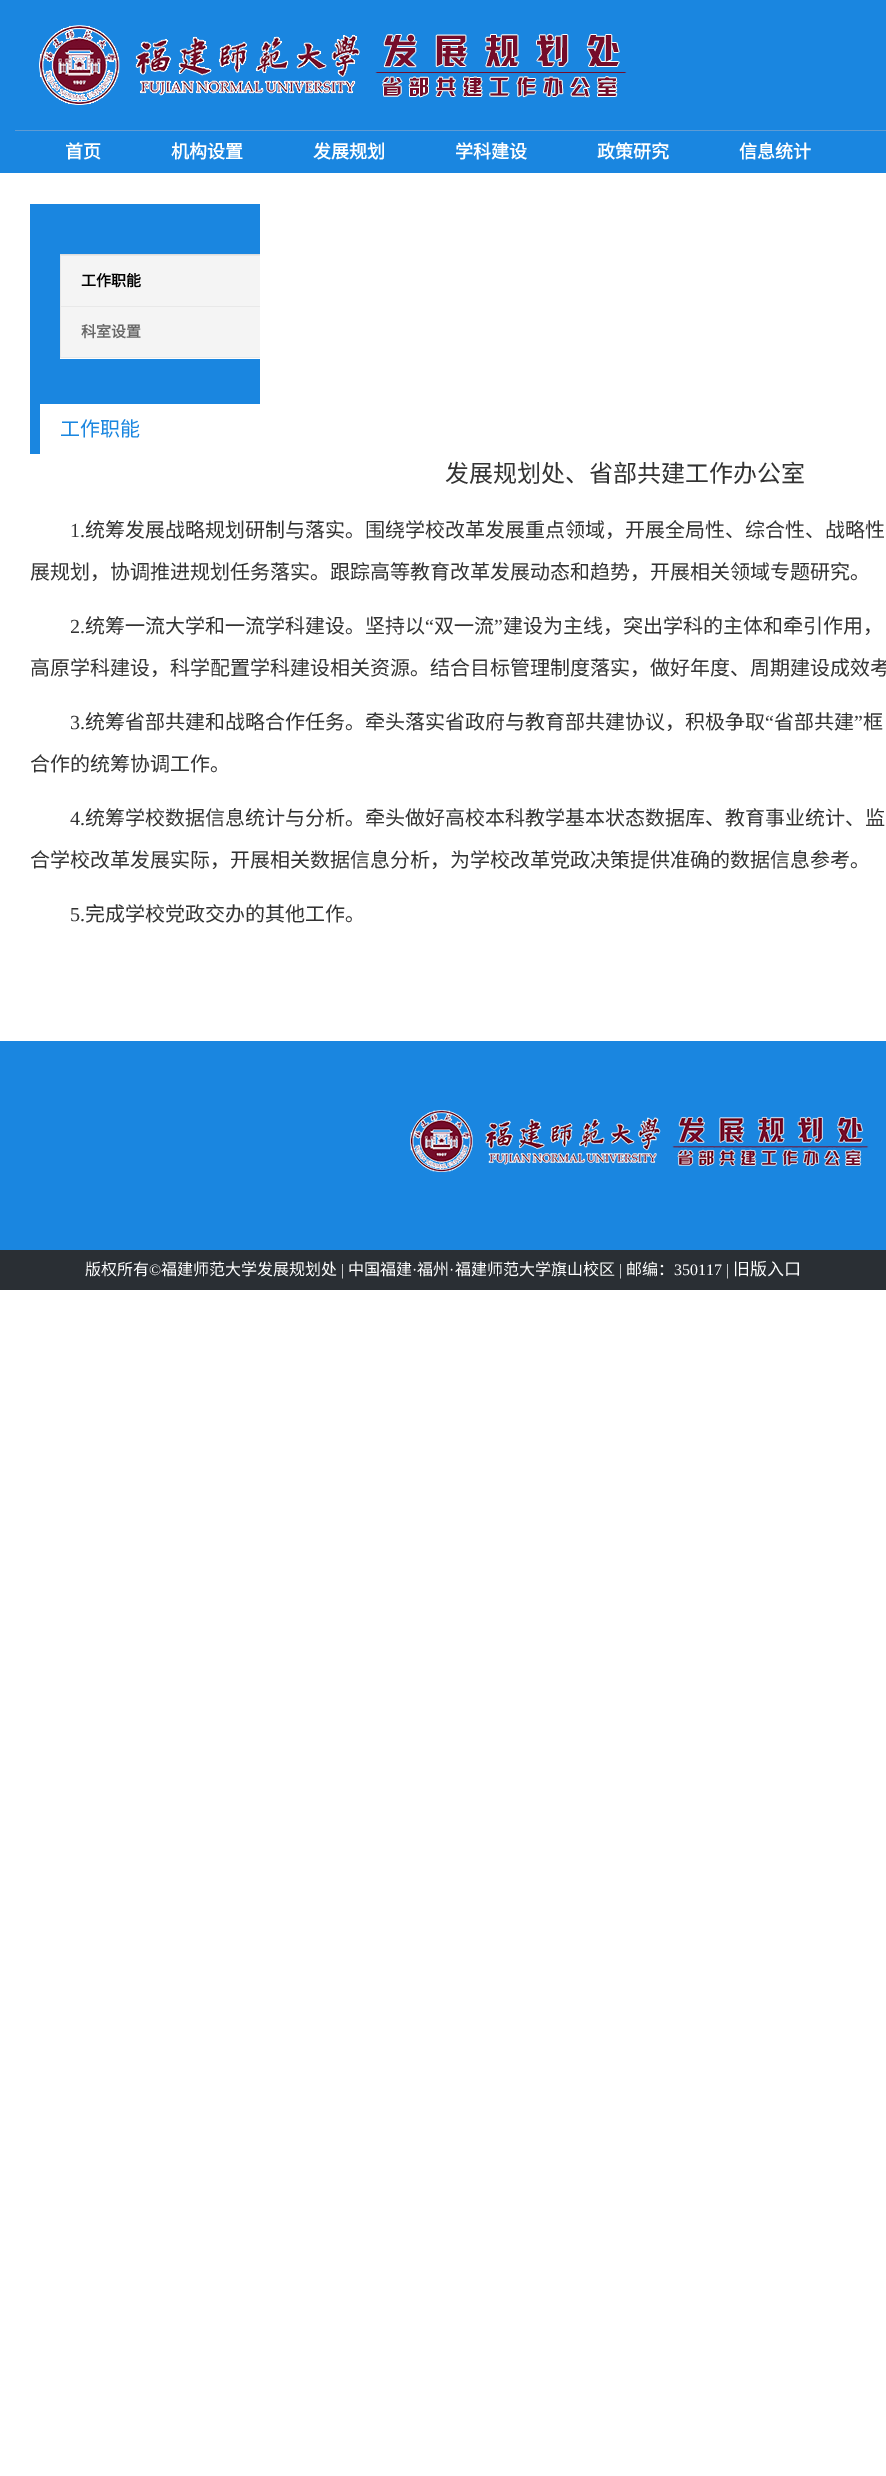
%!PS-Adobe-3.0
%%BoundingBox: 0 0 886 2476
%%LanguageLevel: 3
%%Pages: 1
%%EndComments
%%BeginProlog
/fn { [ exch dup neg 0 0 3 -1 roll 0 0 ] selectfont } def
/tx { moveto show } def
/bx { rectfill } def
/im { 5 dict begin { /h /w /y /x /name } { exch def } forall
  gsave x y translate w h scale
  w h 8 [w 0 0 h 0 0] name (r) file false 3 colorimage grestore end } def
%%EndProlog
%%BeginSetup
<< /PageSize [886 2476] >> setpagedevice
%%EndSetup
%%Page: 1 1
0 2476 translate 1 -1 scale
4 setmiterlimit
1 setgray
0 0 886 2476 bx
0.102 0.525 0.878 setrgbcolor
0 0 886 173 bx
(image0.raw) 39 25 588 80 im
0.365 0.608 0.831 setrgbcolor
15 130 871 1 bx
/NotoSansCJKSC-Bold 18 fn
1 setgray
(首页) 65 158 tx
(机构设置) 171 158 tx
(发展规划) 313 158 tx
(学科建设) 455 158 tx
(政策研究) 597 158 tx
(信息统计) 739 158 tx
0.102 0.525 0.878 setrgbcolor
30 204 230 200 bx
0.867 setgray
60 254 200 1 bx
1 setgray
60 358 200 1 bx
0.91 setgray
60 255 200 1 bx
60 306 200 1 bx
60 255 1 52 bx
0.957 setgray
61 256 199 50 bx
/NotoSansCJKSC-Bold 15 fn
0 setgray
(工作职能) 81 286 tx
0.91 setgray
60 357 200 1 bx
60 307 1 51 bx
0.957 setgray
61 307 199 50 bx
0.4 setgray
(科室设置) 81 337 tx
0.102 0.525 0.878 setrgbcolor
30 404 10 50 bx
/NotoSansCJKSC-Regular 20 fn
(工作职能) 60 436 tx
/NotoSansCJKSC-Regular 24 fn
0.2 setgray
(发展规划处、省部共建工作办公室) 445 482 tx
/LiberationSerif-Regular 20 fn
(1.) 70 537 tx
/NotoSansCJKSC-Regular 20 fn
(统筹发展战略规划研制与落实。围绕学校改革发展重点领域，开展全局性、综合性、战略性) 85 537 tx
(展规划，协调推进规划任务落实。跟踪高等教育改革发展动态和趋势，开展相关领域专题研究。) 30 579 tx
/LiberationSerif-Regular 20 fn
(2.) 70 633 tx
/NotoSansCJKSC-Regular 20 fn
(统筹一流大学和一流学科建设。坚持以) 85 633 tx
/LiberationSerif-Regular 20 fn
(“) 425 633 tx
/NotoSansCJKSC-Regular 20 fn
(双一流) 434 633 tx
/LiberationSerif-Regular 20 fn
(”) 494 633 tx
/NotoSansCJKSC-Regular 20 fn
(建设为主线，突出学科的主体和牵引作用，) 503 633 tx
(高原学科建设，科学配置学科建设相关资源。结合目标管理制度落实，做好年度、周期建设成效考) 30 675 tx
/LiberationSerif-Regular 20 fn
(3.) 70 729 tx
/NotoSansCJKSC-Regular 20 fn
(统筹省部共建和战略合作任务。牵头落实省政府与教育部共建协议，积极争取) 85 729 tx
/LiberationSerif-Regular 20 fn
(“) 765 729 tx
/NotoSansCJKSC-Regular 20 fn
(省部共建) 774 729 tx
/LiberationSerif-Regular 20 fn
(”) 854 729 tx
/NotoSansCJKSC-Regular 20 fn
(框) 863 729 tx
(合作的统筹协调工作。) 30 771 tx
/LiberationSerif-Regular 20 fn
(4.) 70 825 tx
/NotoSansCJKSC-Regular 20 fn
(统筹学校数据信息统计与分析。牵头做好高校本科教学基本状态数据库、教育事业统计、监) 85 825 tx
(合学校改革发展实际，开展相关数据信息分析，为学校改革党政决策提供准确的数据信息参考。) 30 867 tx
/LiberationSerif-Regular 20 fn
(5.) 70 921 tx
/NotoSansCJKSC-Regular 20 fn
(完成学校党政交办的其他工作。) 85 921 tx
0.102 0.525 0.878 setrgbcolor
0 1041 886 209 bx
(image1.raw) 410 1110 459 62 im
0.165 0.184 0.204 setrgbcolor
0 1250 886 40 bx
/NotoSansCJKSC-Regular 16 fn
1 setgray
(版权所有) 85 1275 tx
/LiberationSerif-Regular 16 fn
(©) 149 1275 tx
/NotoSansCJKSC-Regular 16 fn
(福建师范大学发展规划处) 161 1275 tx
/LiberationSerif-Regular 16 fn
(|) 341 1275 tx
/NotoSansCJKSC-Regular 16 fn
(中国福建) 348 1275 tx
/LiberationSerif-Regular 16 fn
(·) 412 1275 tx
/NotoSansCJKSC-Regular 16 fn
(福州) 417 1275 tx
/LiberationSerif-Regular 16 fn
(·) 449 1275 tx
/NotoSansCJKSC-Regular 16 fn
(福建师范大学旗山校区) 455 1275 tx
/LiberationSerif-Regular 16 fn
(|) 619 1275 tx
/NotoSansCJKSC-Regular 16 fn
(邮编：) 626 1275 tx
/LiberationSerif-Regular 16 fn
(350117 |) 674 1275 tx
/NotoSansCJKSC-Regular 17 fn
(旧版入口) 733 1275 tx
showpage
%%EOF
